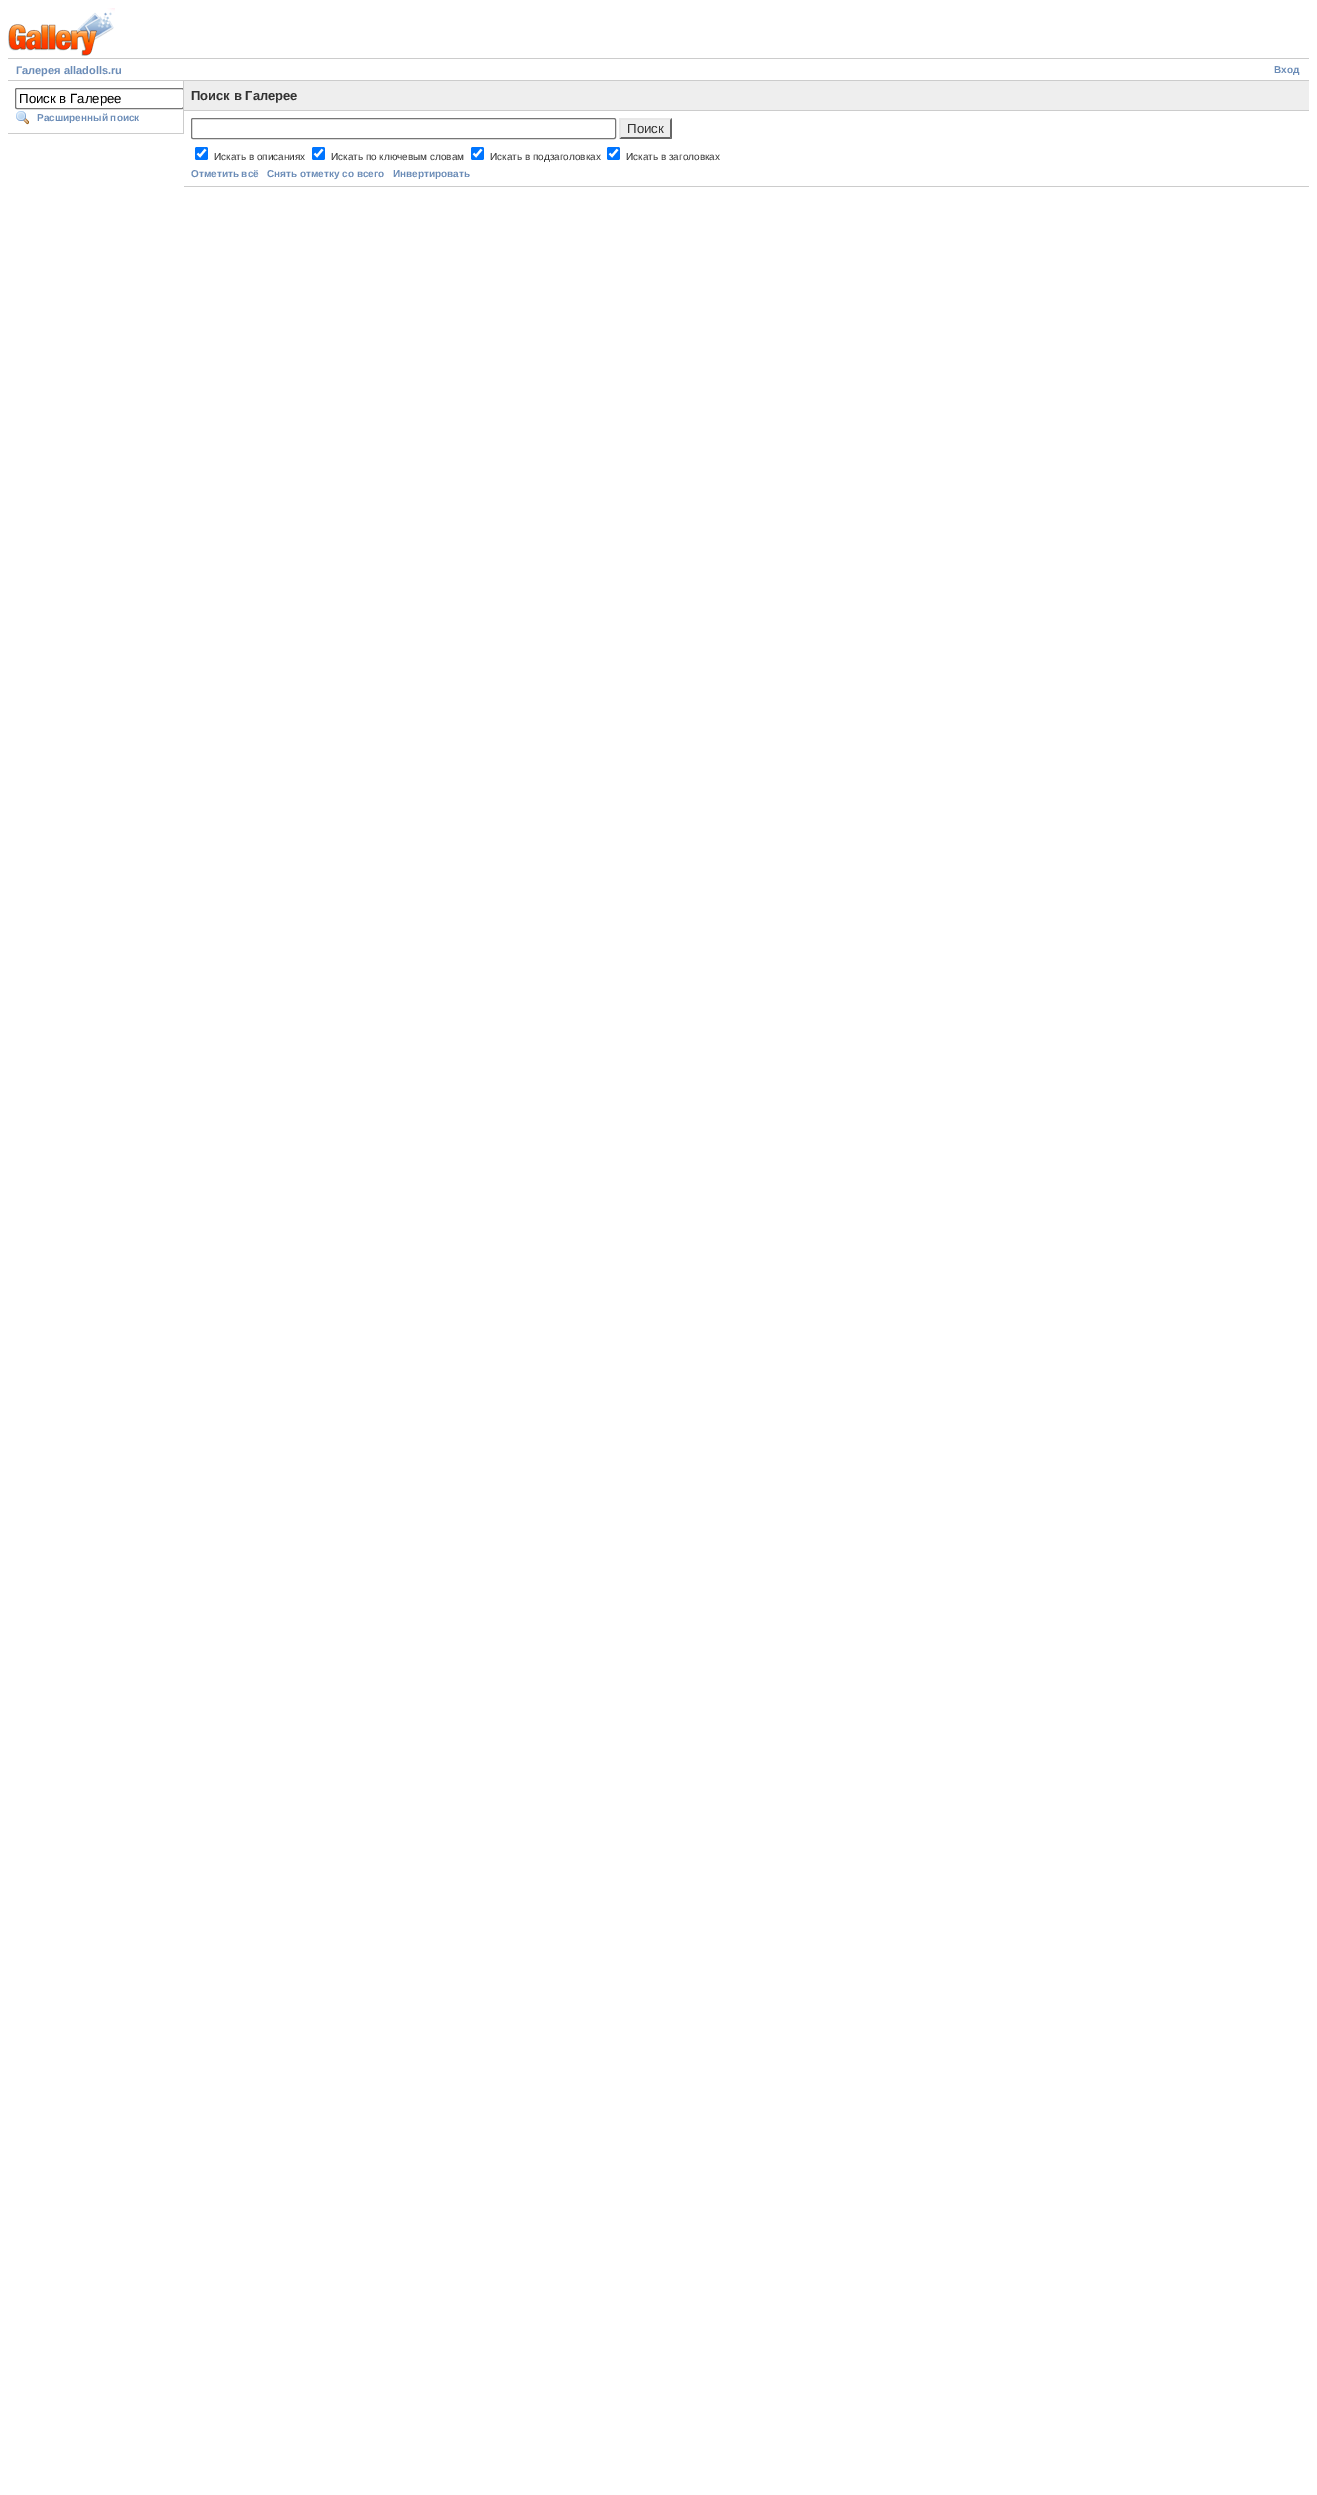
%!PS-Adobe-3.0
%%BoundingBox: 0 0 1317 2495
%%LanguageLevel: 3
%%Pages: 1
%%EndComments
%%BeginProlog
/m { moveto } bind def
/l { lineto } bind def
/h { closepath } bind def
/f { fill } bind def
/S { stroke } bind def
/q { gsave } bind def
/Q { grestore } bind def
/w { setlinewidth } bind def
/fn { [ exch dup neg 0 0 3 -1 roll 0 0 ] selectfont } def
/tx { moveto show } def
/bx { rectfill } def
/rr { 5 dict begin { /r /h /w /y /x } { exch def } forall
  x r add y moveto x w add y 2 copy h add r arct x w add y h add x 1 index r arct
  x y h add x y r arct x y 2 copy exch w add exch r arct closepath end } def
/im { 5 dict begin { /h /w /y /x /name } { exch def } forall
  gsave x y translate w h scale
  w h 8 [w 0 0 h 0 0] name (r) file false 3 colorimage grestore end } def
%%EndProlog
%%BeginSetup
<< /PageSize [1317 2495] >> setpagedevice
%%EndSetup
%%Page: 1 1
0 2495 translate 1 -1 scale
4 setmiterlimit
1 setgray
0 0 1317 2495 bx
(image0.raw) 8 8 107 48 im
0.8 setgray
8 58 1301 1 bx
8 80 1301 1 bx
/LiberationSans-Bold 11 fn
0.42 0.549 0.718 setrgbcolor
(Галерея alladolls.ru) 16 74 tx
/LiberationSans-Bold 10 fn
(Вход) 1274 73 tx
0.8 setgray
183 81 1 53 bx
8 133 175 1 bx
q
8 81 175 53 rectclip
0.463 setgray
15.5 88.5 168 20 1.5 rr S
Q
/LiberationSans-Regular 13.25 fn
0 setgray
(Поиск в Галерее) 19 103 tx
(image1.raw) 16 111 13 14 im
/LiberationSans-Bold 10 fn
0.42 0.549 0.718 setrgbcolor
(Расширенный поиск) 37 121 tx
0.933 setgray
184 81 1125 29 bx
0.8 setgray
184 110 1125 1 bx
/LiberationSans-Bold 13 fn
0.2 setgray
(Поиск в Галерее) 191 100 tx
0.8 setgray
184 186 1125 1 bx
0.463 setgray
191.5 118.5 424 20 1.5 rr S
0.933 setgray
619 118 53 21 bx
0.906 setgray
619 118 m 672 118 l 670 120 l 621 120 l h f
0.4 setgray
672 118 m 672 139 l 670 137 l 670 120 l h f
672 139 m 619 139 l 621 137 l 670 137 l h f
0.906 setgray
619 139 m 619 118 l 621 120 l 621 137 l h f
/LiberationSans-Regular 13.25 fn
0.2 setgray
(Поиск) 627 133 tx
0 0.459 1 setrgbcolor
195 147 13 13 2 rr f
1 setgray
2.1 w
197.5 153.5 m 200 156 l 205.5 149.5 l S
/LiberationSans-Regular 10 fn
0.2 setgray
(Искать в описаниях) 214 160 tx
0 0.459 1 setrgbcolor
312 147 13 13 2 rr f
1 setgray
314.5 153.5 m 317 156 l 322.5 149.5 l S
0.2 setgray
(Искать по ключевым словам) 331 160 tx
0 0.459 1 setrgbcolor
471 147 13 13 2 rr f
1 setgray
473.5 153.5 m 476 156 l 481.5 149.5 l S
0.2 setgray
(Искать в подзаголовках) 490 160 tx
0 0.459 1 setrgbcolor
607 147 13 13 2 rr f
1 setgray
609.5 153.5 m 612 156 l 617.5 149.5 l S
0.2 setgray
(Искать в заголовках) 626 160 tx
/LiberationSans-Bold 10 fn
0.42 0.549 0.718 setrgbcolor
(Отметить всё) 191 177 tx
(Снять отметку со всего) 267 177 tx
(Инвертировать) 393 177 tx
showpage
%%EOF
